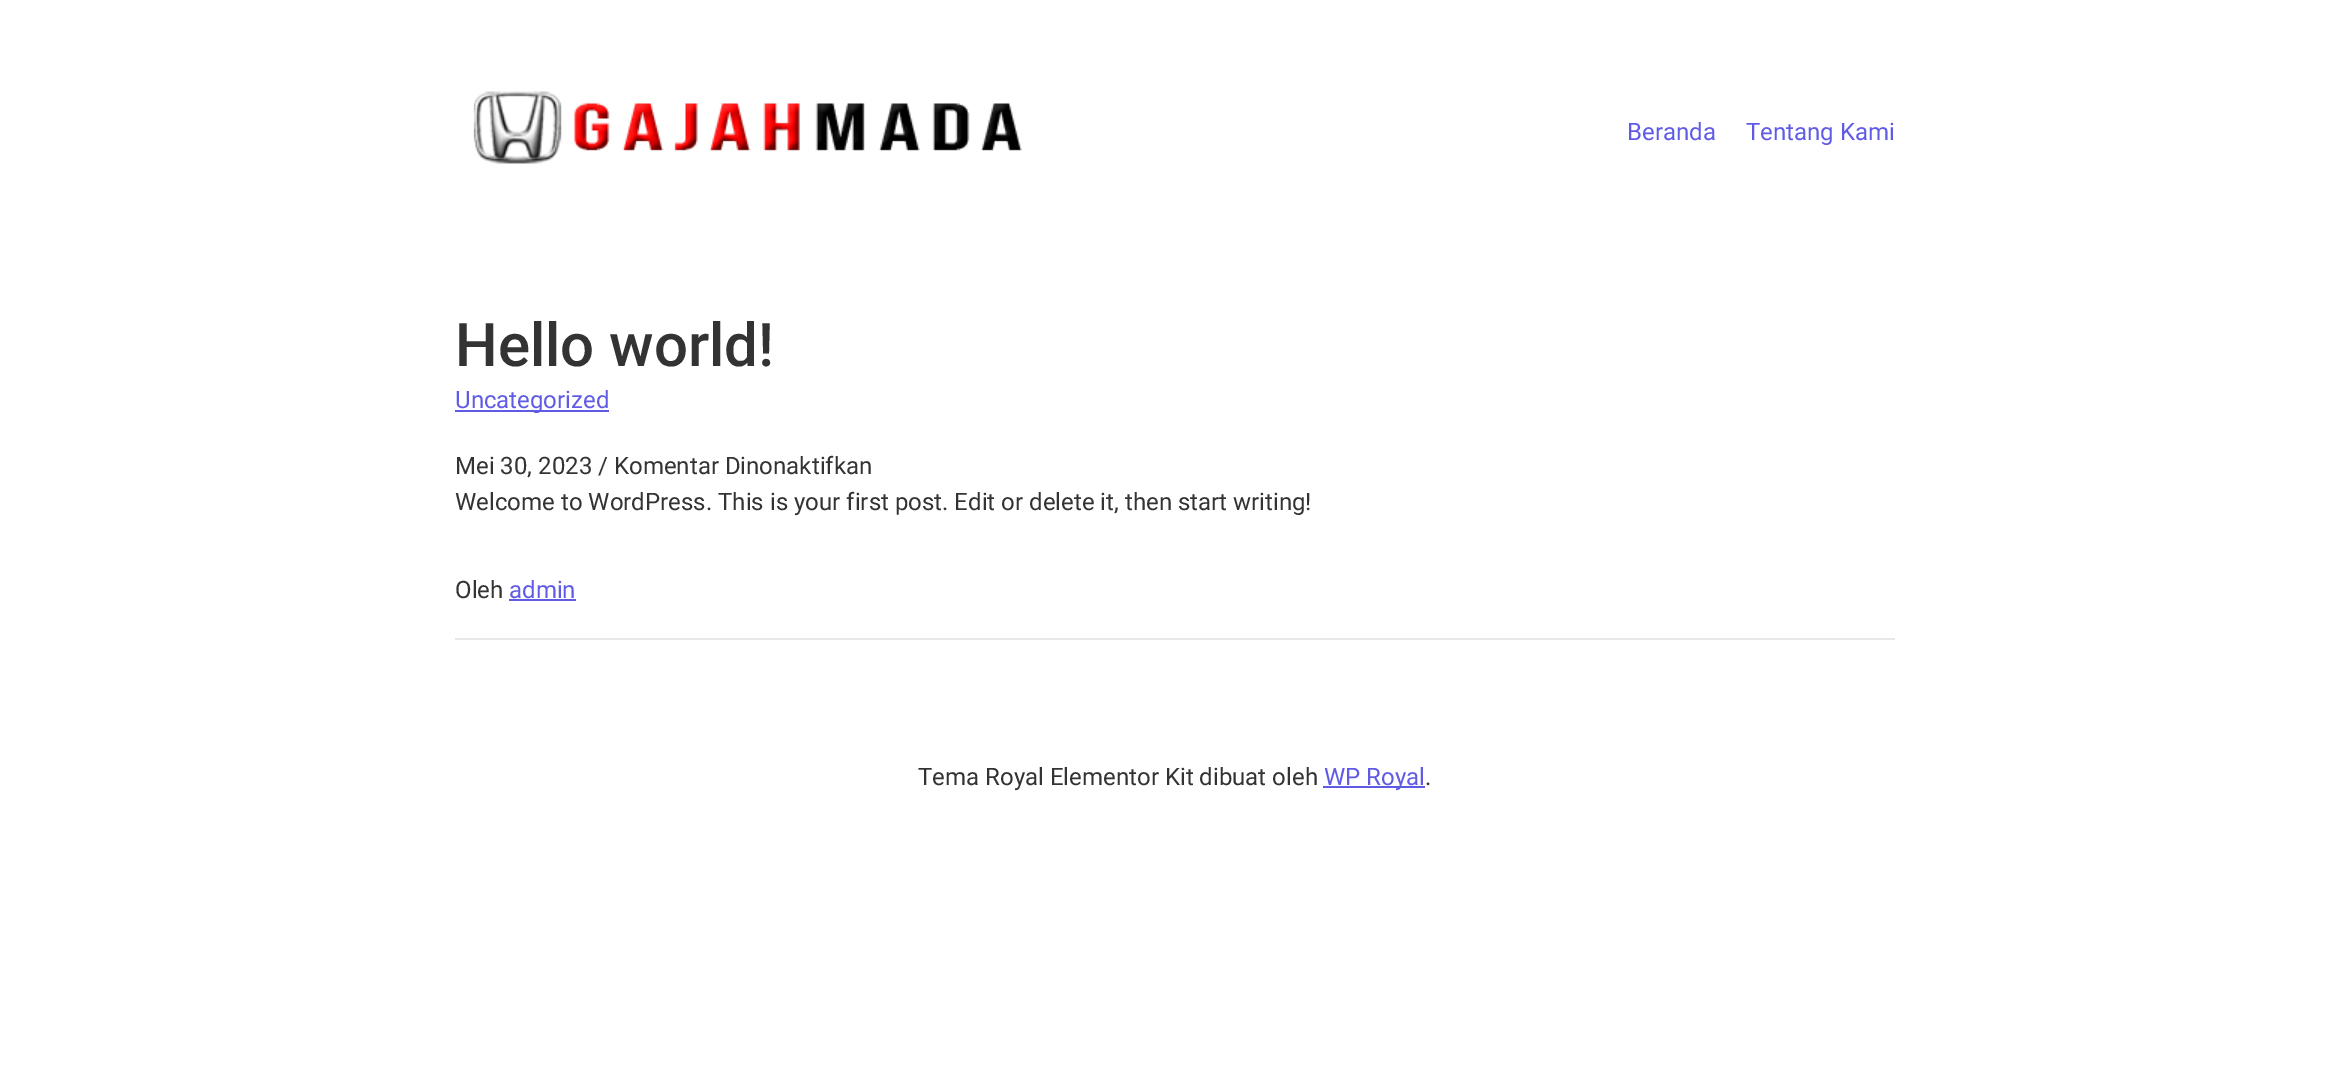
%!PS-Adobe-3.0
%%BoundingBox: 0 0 2349 1092
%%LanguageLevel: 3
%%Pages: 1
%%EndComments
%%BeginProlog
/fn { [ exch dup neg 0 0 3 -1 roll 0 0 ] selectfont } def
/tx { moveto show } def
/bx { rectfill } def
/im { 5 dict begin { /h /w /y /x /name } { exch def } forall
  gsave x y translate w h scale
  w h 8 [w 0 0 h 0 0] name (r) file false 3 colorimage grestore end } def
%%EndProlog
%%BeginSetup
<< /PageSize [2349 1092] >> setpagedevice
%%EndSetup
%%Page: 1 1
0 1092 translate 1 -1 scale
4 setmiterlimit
1 setgray
0 0 2349 1092 bx
(image0.raw) 473 91 549 73 im
/Roboto-Regular 24 fn
0.376 0.357 0.898 setrgbcolor
(Beranda) 1627 140 tx
(Tentang Kami) 1746 140 tx
/Roboto-Medium 60 fn
0.2 setgray
(Hello world!) 455 366 tx
0.376 0.357 0.898 setrgbcolor
455 410 154 2 bx
/Roboto-Regular 24 fn
(Uncategorized) 455 408 tx
0.2 setgray
(Mei 30, 2023 / Komentar Dinonaktifkan) 455 474 tx
(Welcome to WordPress. This is your first post. Edit or delete it, then start writing!) 455 510 tx
0.91 setgray
455 638 1440 2 bx
0.2 setgray
(Oleh) 455 598 tx
0.376 0.357 0.898 setrgbcolor
(admin) 509 598 tx
509 599 67 2 bx
0.2 setgray
(Tema Royal Elementor Kit dibuat oleh) 918 785 tx
0.376 0.357 0.898 setrgbcolor
1323 786 102 2 bx
(WP Royal) 1324 785 tx
0.2 setgray
(.) 1425 785 tx
showpage
%%EOF
